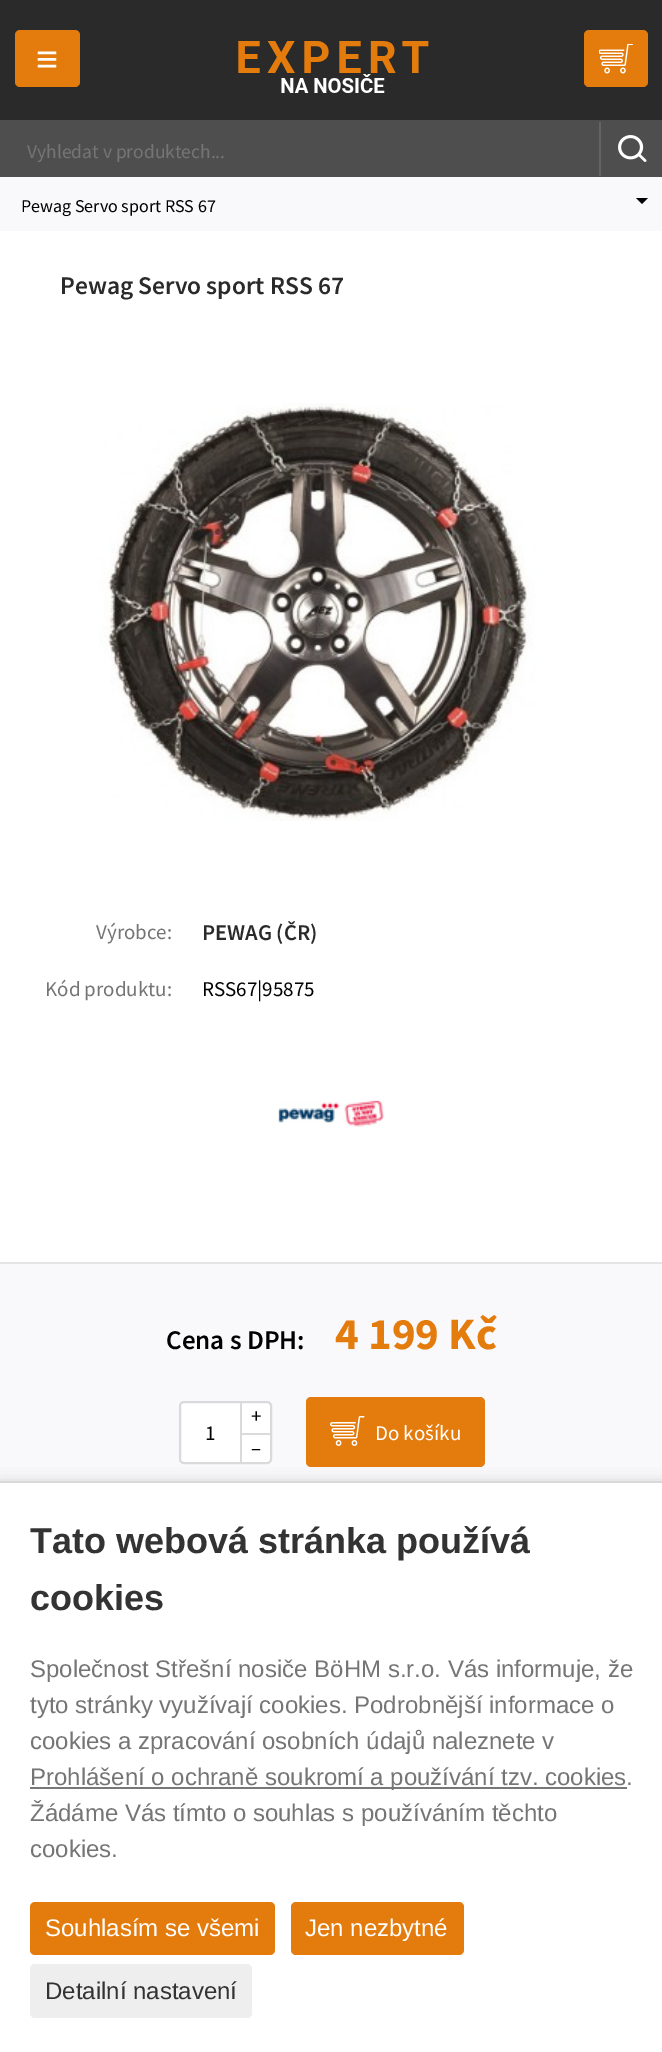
%!PS-Adobe-3.0
%%BoundingBox: 0 0 662 2052
%%LanguageLevel: 3
%%Pages: 1
%%EndComments
%%BeginProlog
/m { moveto } bind def
/l { lineto } bind def
/h { closepath } bind def
/f { fill } bind def
/S { stroke } bind def
/q { gsave } bind def
/Q { grestore } bind def
/w { setlinewidth } bind def
/fn { [ exch dup neg 0 0 3 -1 roll 0 0 ] selectfont } def
/tx { moveto show } def
/bx { rectfill } def
/al { dup .setfillconstantalpha .setstrokeconstantalpha } def
/rr { 5 dict begin { /r /h /w /y /x } { exch def } forall
  x r add y moveto x w add y 2 copy h add r arct x w add y h add x 1 index r arct
  x y h add x y r arct x y 2 copy exch w add exch r arct closepath end } def
/sh { 12 dict begin { /a /b /q /h /w /y /x } { exch def } forall gsave /was 0 def
  9 -2 -9 { dup b mul 4 div /e exch def 1 sub .425 mul 2.718 exch exp 1 add a .99 .min exch div /now exch def
    1 1 now sub 1 was sub div sub al /was now def
    w h .min e 2 mul add 0 gt { x e sub y e sub w e 2 mul add h e 2 mul add
      q e add b .6 mul add w h .min 2 div e add .min 0 .max rr fill } if } for grestore end } def
/im { 5 dict begin { /h /w /y /x /name } { exch def } forall
  gsave x y translate w h scale
  w h 8 [w 0 0 h 0 0] name (r) file false 3 colorimage grestore end } def
%%EndProlog
%%BeginSetup
<< /PageSize [662 2052] /PageUsesTransparency true >> setpagedevice
%%EndSetup
%%Page: 1 1
0 .pushpdf14devicefilter
0 2052 translate 1 -1 scale
4 setmiterlimit
1 setgray
0 0 662 2052 bx
0.165 setgray
0 0 662 120 bx
0.894 0.486 0.051 setrgbcolor
15 30 65 57 5 rr f
/LiberationSans-Bold 38 fn
1 setgray
(≡) 36 72 tx
(image0.raw) 238 41 191 52 im
0.894 0.486 0.051 setrgbcolor
584 30 64 57 5 rr f
(image1.raw) 599 44 34 30 im
0.306 setgray
0 120 662 57 bx
/SourceSansPro-Regular 19.5 fn
0.459 setgray
(Vyhledat v produktech...) 27 158 tx
(image2.raw) 618 135 29 27 im
0.392 setgray
599 122 2 54 bx
0.976 0.976 0.984 setrgbcolor
0 177 662 54 bx
/SourceSansPro-Regular 18 fn
0 setgray
(Pewag Servo sport RSS 67) 21 212 tx
636 198 m 648 198 l 642 204 l h f
/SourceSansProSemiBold-SemiBold 25.5 fn
0.165 setgray
(Pewag Servo sport RSS 67) 60 294 tx
(image3.raw) 99 403 436 418 im
/SourceSansPro-Regular 21 fn
0.459 setgray
(Výrobce:) 96 939 tx
/SourceSansProSemiBold-SemiBold 22.5 fn
0.165 setgray
(PEWAG \(ČR\)) 202 940 tx
/SourceSansPro-Regular 21 fn
0.459 setgray
(Kód produktu:) 45 996 tx
0 setgray
(RSS67|95875) 202 996 tx
(image4.raw) 278 1100 107 27 im
0.976 0.976 0.984 setrgbcolor
0 1264 662 217 bx
0.898 0.898 0.906 setrgbcolor
0 1262 662 2 bx
/SourceSansProSemiBold-SemiBold 27 fn
0 setgray
(Cena s DPH:) 166 1349 tx
/SourceSansPro-Bold 45 fn
0.894 0.486 0.051 setrgbcolor
(4 199 Kč) 335 1349 tx
1 setgray
180 1402 91 61 4 rr q f Q
0.855 0.855 0.863 setrgbcolor
2 w
S
/SourceSansPro-Regular 21 fn
0 setgray
(+) 251 1423 tx
(1) 205 1440 tx
0.855 0.855 0.863 setrgbcolor
242 1433 30 2 bx
240 1401 2 63 bx
0 setgray
(–) 251 1455 tx
0.894 0.486 0.051 setrgbcolor
306 1397 179 70 5 rr f
(image5.raw) 330 1416 35 30 im
1 setgray
(Do košíku) 375 1440 tx
0 setgray
0 1484 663 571 0 7.5 0.2 sh
1 setgray
0 1483 662 569 bx
0.851 setgray
0 1481 662 2 bx
/LiberationSans-Bold 36 fn
0.2 setgray
(Tato webová stránka používá) 30 1553 tx
(cookies) 30 1610 tx
/LiberationSans-Regular 24 fn
0.459 setgray
(Společnost Střešní nosiče BöHM s.r.o. Vás informuje, že) 30 1677 tx
(tyto stránky využívají cookies. Podrobnější informace o) 30 1713 tx
(cookies a zpracování osobních údajů naleznete v) 30 1749 tx
0.467 setgray
30 1787 597 2 bx
0.459 setgray
(Prohlášení o ochraně soukromí a používání tzv. cookies.) 30 1785 tx
(Žádáme Vás tímto o souhlas s používáním těchto) 30 1821 tx
(cookies.) 30 1857 tx
0.894 0.486 0.051 setrgbcolor
30 1902 245 53 5 rr f
1 setgray
(Souhlasím se všemi) 45 1936 tx
0.894 0.486 0.051 setrgbcolor
291 1902 173 53 5 rr f
1 setgray
(Jen nezbytné) 305 1936 tx
0.933 setgray
30 1964 222 54 5 rr f
0.2 setgray
(Detailní nastavení) 45 1999 tx
.poppdf14devicefilter showpage
%%EOF
